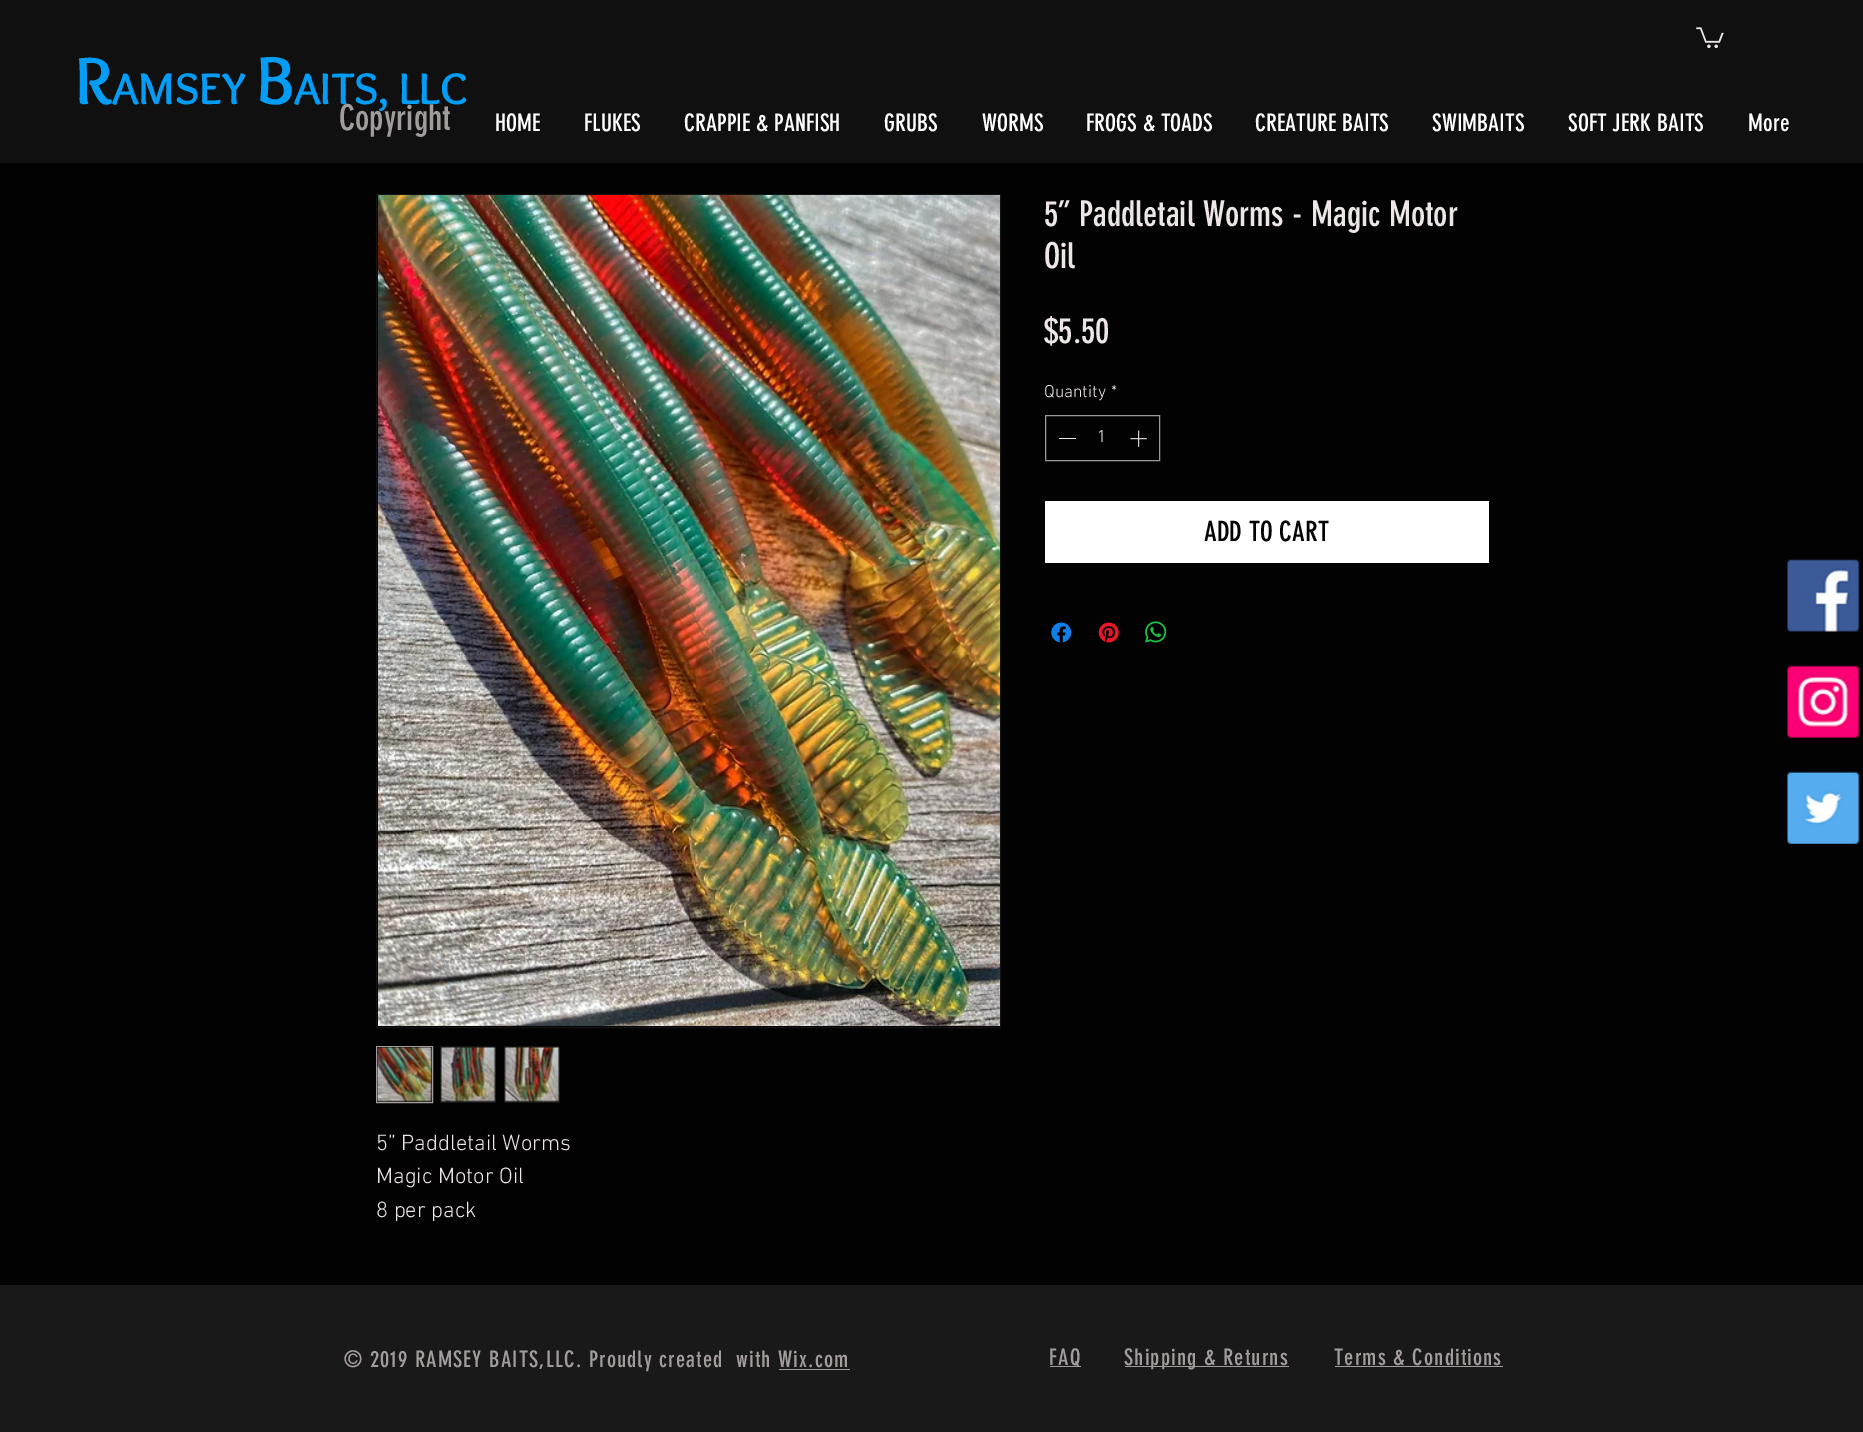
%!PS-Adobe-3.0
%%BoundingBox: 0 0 1863 1432
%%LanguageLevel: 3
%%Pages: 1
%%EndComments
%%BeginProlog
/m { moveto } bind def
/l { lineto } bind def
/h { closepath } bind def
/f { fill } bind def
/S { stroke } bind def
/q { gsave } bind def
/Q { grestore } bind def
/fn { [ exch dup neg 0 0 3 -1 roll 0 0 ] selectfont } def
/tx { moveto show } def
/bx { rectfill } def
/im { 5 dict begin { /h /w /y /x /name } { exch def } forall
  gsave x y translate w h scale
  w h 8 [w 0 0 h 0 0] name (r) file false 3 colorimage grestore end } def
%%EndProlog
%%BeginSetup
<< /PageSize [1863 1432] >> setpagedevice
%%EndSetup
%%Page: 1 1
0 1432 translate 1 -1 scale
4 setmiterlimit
0.008 setgray
0 0 1863 1432 bx
0.063 setgray
0 0 1863 163 bx
/Overlock-Bold 69 fn
0.016 0.616 0.965 setrgbcolor
(R) 75 104 tx
/Overlock-Bold 46 fn
(AMSEY) 112 104 tx
/Overlock-Bold 70 fn
(B) 256 104 tx
/Overlock-Bold 46 fn
(AITS, LLC) 294 104 tx
/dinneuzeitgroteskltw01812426-Regular 35 fn
0.635 0.612 0.612 setrgbcolor
(Copyright) 339 130 tx
(image0.raw) 1696 27 28 22 im
/dinneuzeitgroteskltw01812426-Regular 23.75 fn
1 setgray
(HOME) 495 131 tx
(FLUKES) 584 131 tx
(CRAPPIE & PANFISH) 684 131 tx
(GRUBS) 884 131 tx
(WORMS) 982 131 tx
(FROGS & TOADS) 1086 131 tx
(CREATURE BAITS) 1255 131 tx
(SWIMBAITS) 1432 131 tx
(SOFT JERK BAITS) 1568 131 tx
(More) 1748 131 tx
/dinneuzeitgroteskltw01812426-Regular 35 fn
0.933 0.902 0.902 setrgbcolor
(5” Paddletail Worms - Magic Motor) 1044 226 tx
(Oil) 1044 268 tx
($5.50) 1044 343 tx
/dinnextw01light-Light 17.5 fn
(Quantity) 1044 397 tx
(*) 1111 397 tx
0.604 setgray
1045.5 415.5 114 45 rectstroke
0.933 0.902 0.902 setrgbcolor
1059 438 17 1 bx
(1) 1097 442 tx
(image1.raw) 1130 430 17 17 im
1 setgray
1045 501 444 62 bx
/dinneuzeitgroteskltw01812426-Regular 27.5 fn
0.008 setgray
(ADD TO CART) 1204 541 tx
(image2.raw) 1051 622 21 21 im
(image3.raw) 1098 622 21 21 im
(image4.raw) 1145 621 22 22 im
0.078 setgray
376.5 194.5 624 833 rectstroke
(image5.raw) 378 195 622 831 im
376.5 1046.5 m 432.5 1046.5 l 432.5 1102.5 l 376.5 1102.5 l h q f Q
0.635 0.612 0.612 setrgbcolor
S
(image6.raw) 377 1047 55 55 im
0.078 setgray
440 1046 56 57 bx
(image7.raw) 440 1047 56 55 im
504 1046 56 57 bx
(image8.raw) 504 1047 56 55 im
/dinnextw01light-Light 22.5 fn
0.933 0.902 0.902 setrgbcolor
(5” Paddletail Worms) 376 1150 tx
(Magic Motor Oil) 376 1183 tx
(8 per pack) 376 1217 tx
(image9.raw) 1787 559 73 73 im
(image10.raw) 1787 665 73 73 im
(image11.raw) 1787 771 73 73 im
0.102 0.098 0.098 setrgbcolor
0 1285 1863 147 bx
/dinneuzeitgroteskltw01812426-Regular 22.5 fn
0.635 0.612 0.612 setrgbcolor
344 1367 m 1.12 0 (© 2019 RAMSEY BAITS,LLC. Proudly created  with Wix.com) ashow
779 1369 71 1 bx
1050 1366 31 1 bx
1049 1365 m 1.12 0 (FAQ) ashow
1125 1366 164 1 bx
1124 1365 m 1.12 0 (Shipping & Returns) ashow
1334 1365 m 1.12 0 (Terms & Conditions) ashow
1335 1366 168 1 bx
showpage
%%EOF
